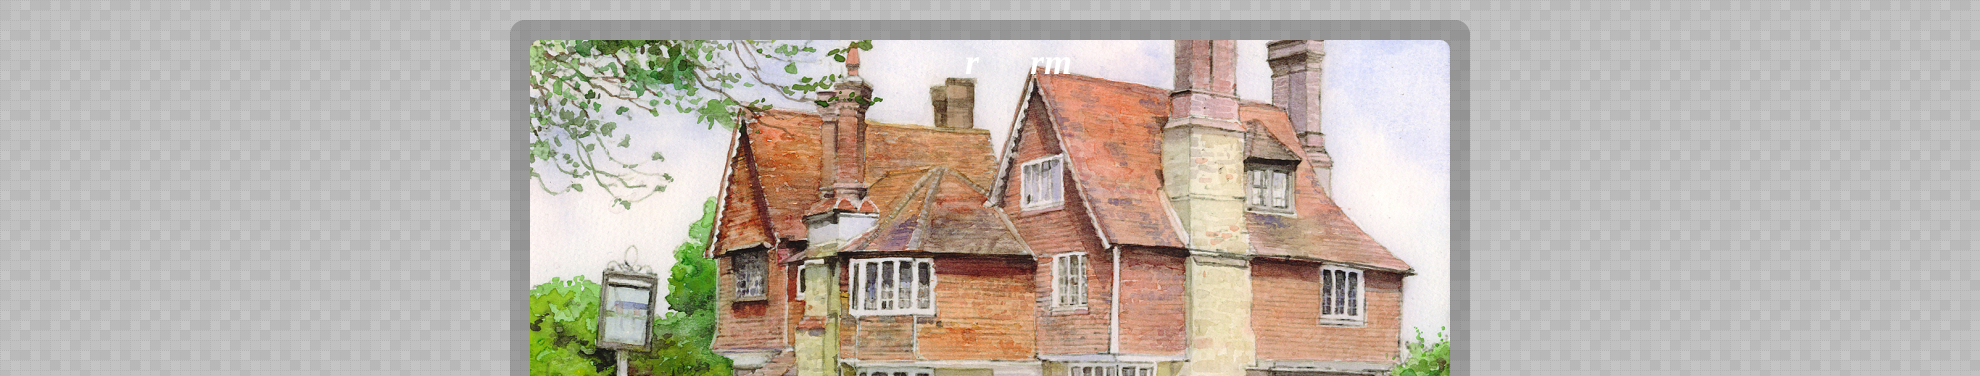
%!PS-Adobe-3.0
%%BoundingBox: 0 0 1980 376
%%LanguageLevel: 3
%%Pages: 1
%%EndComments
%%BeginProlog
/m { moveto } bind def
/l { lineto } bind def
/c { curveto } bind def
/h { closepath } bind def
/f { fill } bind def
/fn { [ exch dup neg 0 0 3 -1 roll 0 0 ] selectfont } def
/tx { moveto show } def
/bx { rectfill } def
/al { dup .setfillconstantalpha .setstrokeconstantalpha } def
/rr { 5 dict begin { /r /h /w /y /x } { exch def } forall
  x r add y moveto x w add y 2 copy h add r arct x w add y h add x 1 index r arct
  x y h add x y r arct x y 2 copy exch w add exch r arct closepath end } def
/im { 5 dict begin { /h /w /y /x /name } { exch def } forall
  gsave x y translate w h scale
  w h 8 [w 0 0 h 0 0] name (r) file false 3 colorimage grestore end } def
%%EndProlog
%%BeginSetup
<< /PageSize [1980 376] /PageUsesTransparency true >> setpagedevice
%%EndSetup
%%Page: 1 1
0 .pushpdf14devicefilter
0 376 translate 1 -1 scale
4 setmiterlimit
1 setgray
0 0 1980 376 bx
(image0.raw) 0 0 1980 376 im
0.2 al
0 setgray
510 20 960 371 15 rr f
1 al
(image1.raw) 530 40 920 10 im
0.627 setgray
540 40 m 1440 40 l 1445.5 40 1450 44.5 1450 50 c 1450 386 l 530 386 l 530 50 l 530 44.5 534.5 40 540 40 c h f
(image2.raw) 530 40 920 336 im
/LiberationSerif-BoldItalic 36 fn
1 setgray
(r) 965 74 tx
(rm) 1030 74 tx
.poppdf14devicefilter showpage
%%EOF
